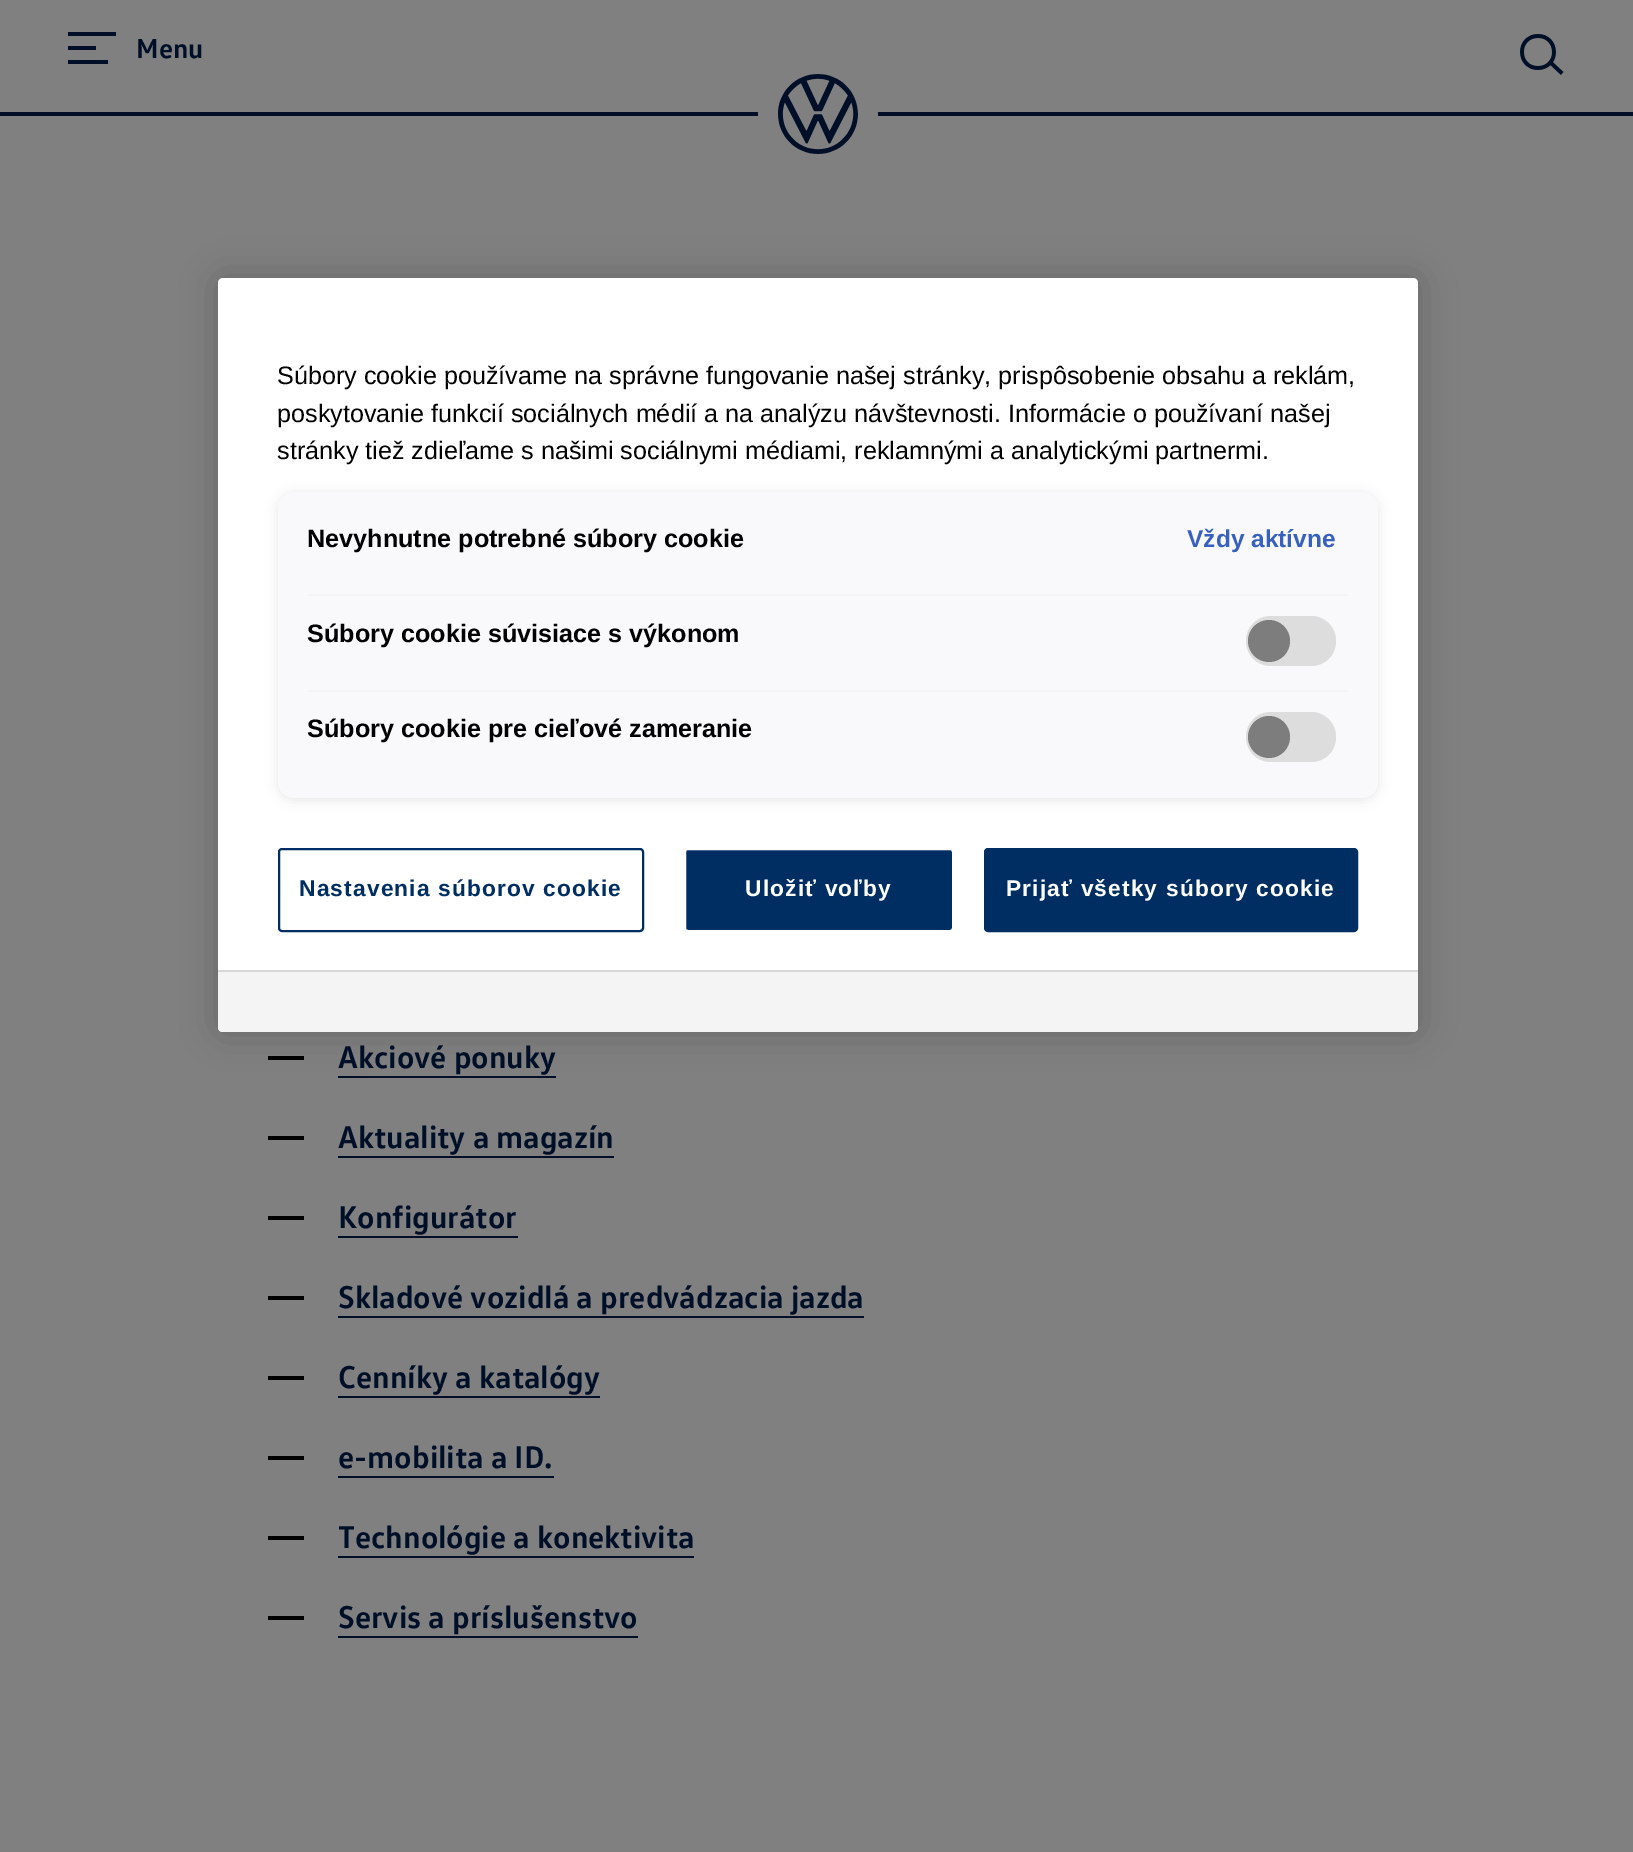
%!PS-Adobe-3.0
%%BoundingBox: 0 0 1633 1852
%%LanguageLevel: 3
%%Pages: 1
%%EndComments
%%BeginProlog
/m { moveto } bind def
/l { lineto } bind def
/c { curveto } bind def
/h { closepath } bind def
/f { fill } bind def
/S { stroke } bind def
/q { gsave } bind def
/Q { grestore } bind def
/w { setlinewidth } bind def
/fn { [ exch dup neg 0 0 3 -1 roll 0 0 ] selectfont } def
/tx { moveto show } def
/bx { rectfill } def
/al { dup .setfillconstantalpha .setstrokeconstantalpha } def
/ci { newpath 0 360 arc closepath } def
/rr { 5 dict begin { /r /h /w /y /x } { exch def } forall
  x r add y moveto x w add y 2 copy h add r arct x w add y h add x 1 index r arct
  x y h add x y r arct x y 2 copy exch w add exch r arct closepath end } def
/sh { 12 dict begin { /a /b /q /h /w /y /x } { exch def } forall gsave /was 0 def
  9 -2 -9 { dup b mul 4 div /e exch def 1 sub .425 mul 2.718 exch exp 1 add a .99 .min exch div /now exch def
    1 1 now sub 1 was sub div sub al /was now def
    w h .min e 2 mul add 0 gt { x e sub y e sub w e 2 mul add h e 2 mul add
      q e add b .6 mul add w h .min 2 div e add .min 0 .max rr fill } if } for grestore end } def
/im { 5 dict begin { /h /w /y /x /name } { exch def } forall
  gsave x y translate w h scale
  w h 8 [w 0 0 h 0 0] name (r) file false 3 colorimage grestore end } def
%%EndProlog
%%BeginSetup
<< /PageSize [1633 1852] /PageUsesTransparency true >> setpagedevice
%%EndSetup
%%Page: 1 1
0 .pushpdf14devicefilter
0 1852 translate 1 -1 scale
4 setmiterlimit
0.502 setgray
0 0 1633 1852 bx
(image0.raw) 68 32 48 32 im
/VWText-Bold 28 fn
0 0.059 0.157 setrgbcolor
(Menu) 136 58 tx
0 112 758 4 bx
(image1.raw) 778 74 80 80 im
878 112 755 4 bx
(image2.raw) 1520 34 44 41 im
0 setgray
268 1056 36 4 bx
/VWText-Bold 32 fn
0 0.059 0.157 setrgbcolor
(Akciové ponuky) 338 1068 tx
338 1076 218 2 bx
0 setgray
268 1136 36 4 bx
0 0.059 0.157 setrgbcolor
(Aktuality a magazín) 338 1148 tx
338 1156 276 2 bx
0 setgray
268 1216 36 4 bx
0 0.059 0.157 setrgbcolor
(Konfigurátor) 338 1228 tx
338 1236 180 2 bx
0 setgray
268 1296 36 4 bx
0 0.059 0.157 setrgbcolor
(Skladové vozidlá a predvádzacia jazda) 338 1308 tx
338 1316 526 2 bx
0 setgray
268 1376 36 4 bx
0 0.059 0.157 setrgbcolor
(Cenníky a katalógy) 338 1388 tx
338 1396 262 2 bx
0 setgray
268 1456 36 4 bx
0 0.059 0.157 setrgbcolor
(e-mobilita a ID.) 338 1468 tx
338 1476 216 2 bx
0 setgray
268 1536 36 4 bx
0 0.059 0.157 setrgbcolor
(Technológie a konektivita) 338 1548 tx
338 1556 356 2 bx
0 setgray
268 1616 36 4 bx
0 0.059 0.157 setrgbcolor
(Servis a príslušenstvo) 338 1628 tx
338 1636 300 2 bx
0 setgray
218 278 1200 754 5 18 0.2 sh
1 setgray
218 278 1200 754 5 rr f
/LiberationSans-Regular 25.2 fn
0 setgray
(Súbory cookie používame na správne fungovanie našej stránky, prispôsobenie obsahu a reklám,) 277 384 tx
(poskytovanie funkcií sociálnych médií a na analýzu návštevnosti. Informácie o používaní našej) 277 422 tx
(stránky tiež zdieľame s našimi sociálnymi médiami, reklamnými a analytickými partnermi.) 277 459 tx
278 494 1100 306 16 6 0.1 sh
0.976 0.976 0.988 setrgbcolor
278 492 1100 306 16 rr f
0.957 setgray
308 594 1040 2 bx
/LiberationSans-Bold 25.2 fn
0 setgray
(Nevyhnutne potrebné súbory cookie) 307 547 tx
/LiberationSans-Bold 24.5 fn
0.22 0.376 0.745 setrgbcolor
(Vždy aktívne) 1187 547 tx
0.957 setgray
308 690 1040 2 bx
/LiberationSans-Bold 25.2 fn
0 setgray
(Súbory cookie súvisiace s výkonom) 307 642 tx
0.867 setgray
1271 616 m 1311 616 l 1325 616 1336 627 1336 641 c 1336 655 1325 666 1311 666 c 1271 666 l 1257 666 1246 655 1246 641 c 1246 627 1257 616 1271 616 c h f
0.49 setgray
1269 641 21 ci f
0 setgray
(Súbory cookie pre cieľové zameranie) 307 737 tx
0.867 setgray
1271 712 m 1311 712 l 1325 712 1336 723 1336 737 c 1336 751 1325 762 1311 762 c 1271 762 l 1257 762 1246 751 1246 737 c 1246 723 1257 712 1271 712 c h f
0.49 setgray
1269 737 21 ci f
0 0.18 0.384 setrgbcolor
2 w
279 849 364 82 3 rr S
/LiberationSans-Bold 22.75 fn
299 896 m 1.15 0 (Nastavenia súborov cookie) ashow
685 849 268 82 3 rr q f Q
1 setgray
S
745 896 m 1.15 0 (Uložiť voľby) ashow
0 0.18 0.384 setrgbcolor
985 849 372 82 3 rr q f Q
S
1 setgray
1006 896 m 1.15 0 (Prijať všetky súbory cookie) ashow
0.957 setgray
218 970 m 1418 970 l 1418 1027 l 1418 1030 1416 1032 1413 1032 c 223 1032 l 220 1032 218 1030 218 1027 c h f
0.847 setgray
218 970 1200 2 bx
.poppdf14devicefilter showpage
%%EOF
